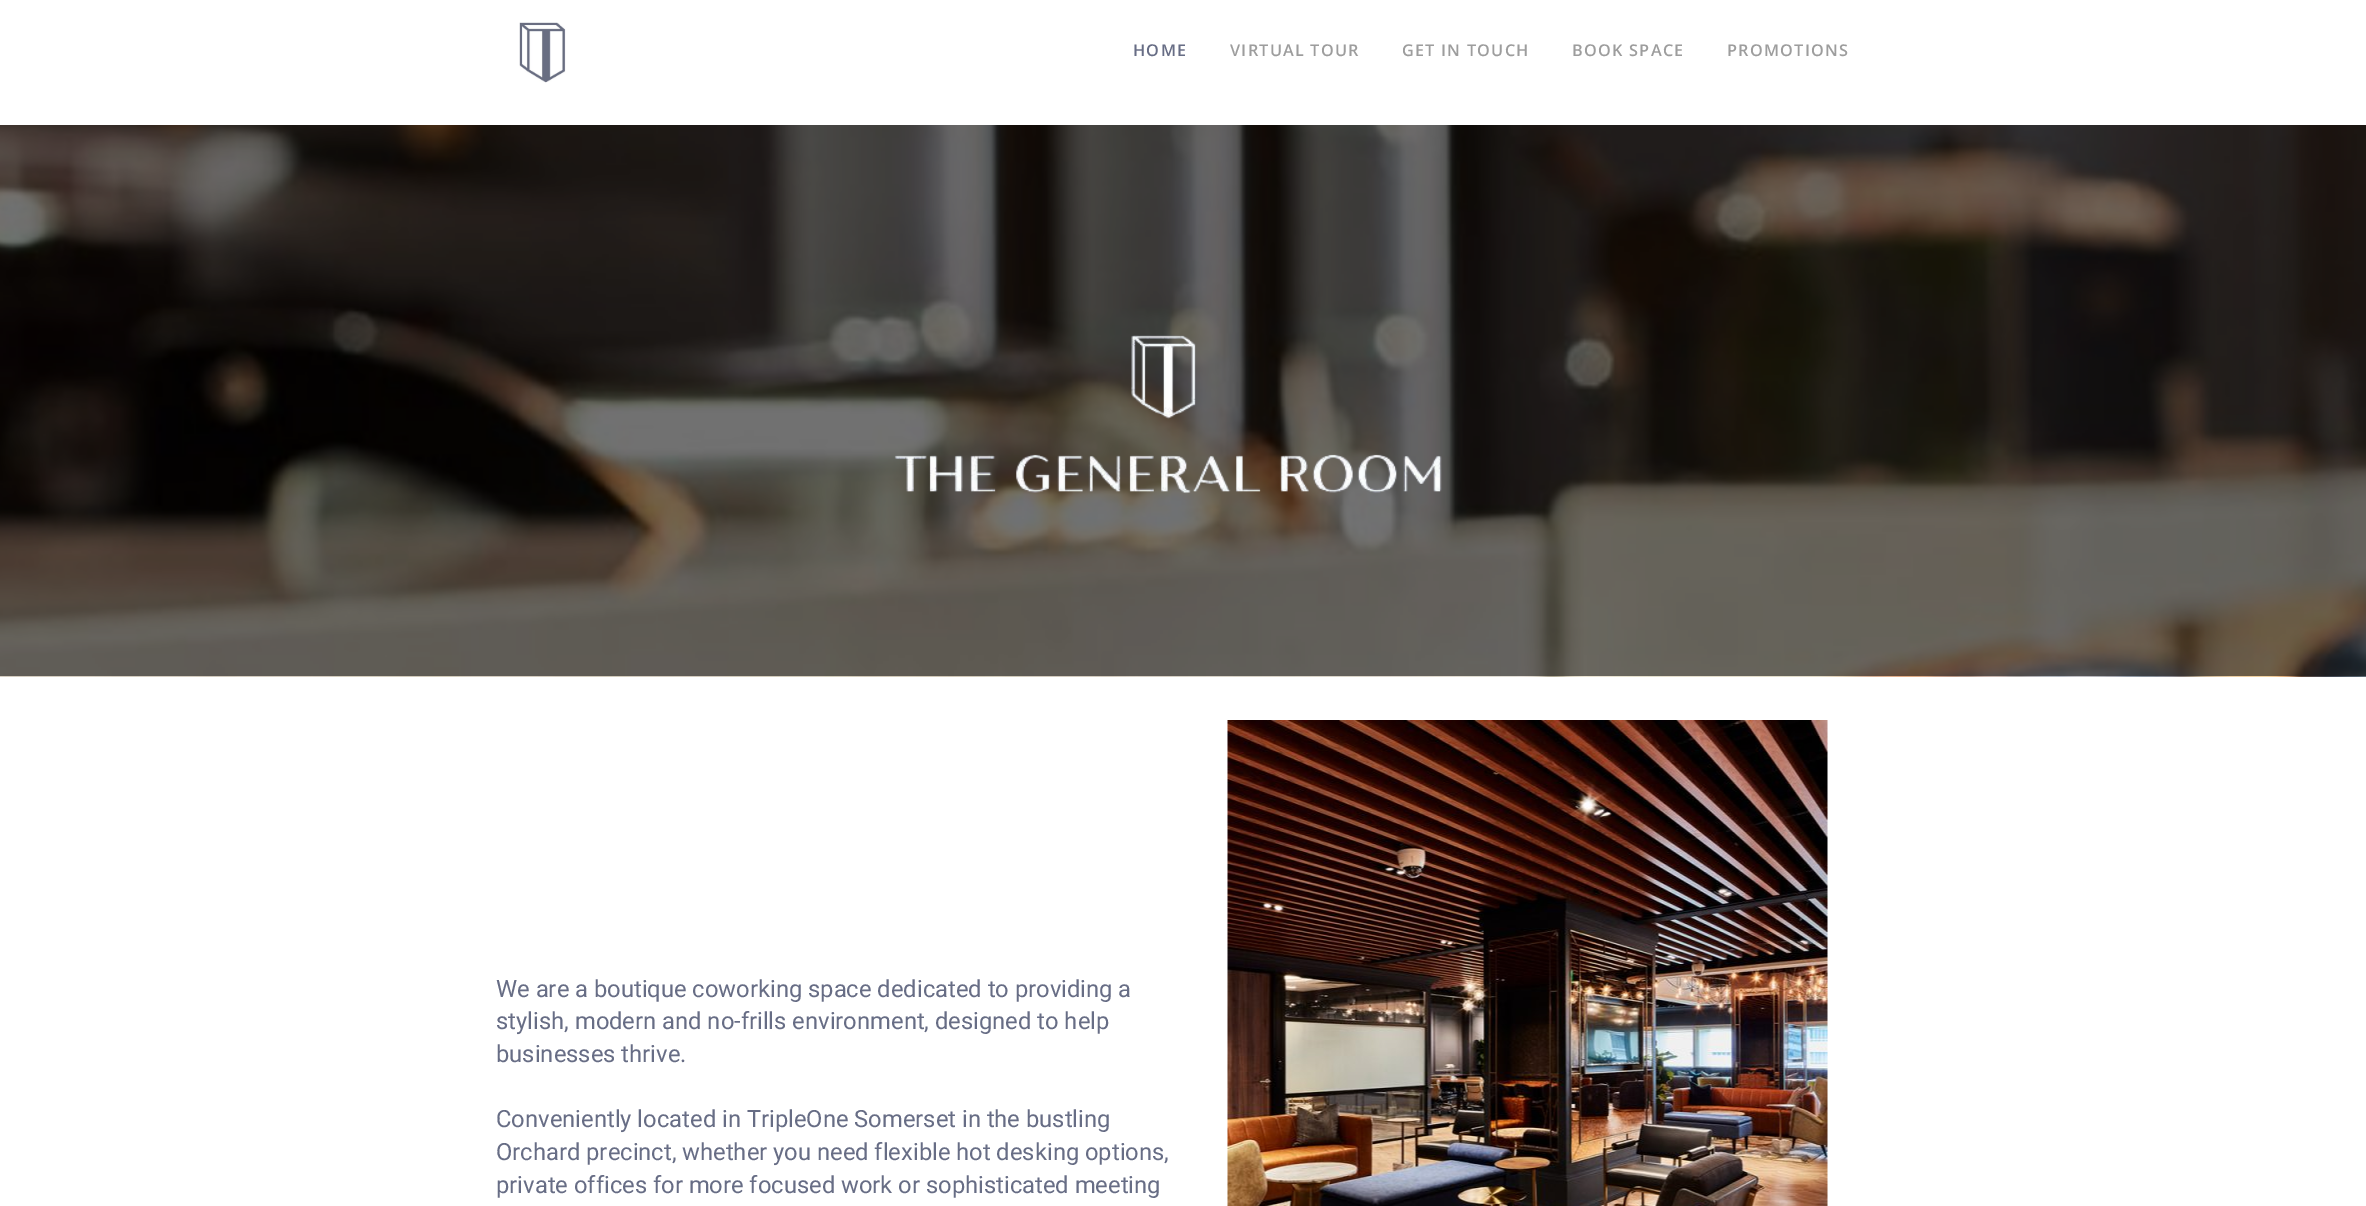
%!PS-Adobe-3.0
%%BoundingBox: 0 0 2366 1206
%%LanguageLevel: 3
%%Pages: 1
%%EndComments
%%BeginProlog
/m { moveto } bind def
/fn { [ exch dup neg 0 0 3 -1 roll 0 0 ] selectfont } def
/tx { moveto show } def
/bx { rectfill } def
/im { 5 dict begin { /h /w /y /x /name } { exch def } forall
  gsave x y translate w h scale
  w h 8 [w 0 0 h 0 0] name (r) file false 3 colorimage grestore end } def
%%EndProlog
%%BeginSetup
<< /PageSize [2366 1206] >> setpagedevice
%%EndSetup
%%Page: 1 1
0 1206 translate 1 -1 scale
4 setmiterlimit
1 setgray
0 0 2366 1206 bx
(image0.raw) 519 22 47 61 im
/OpenSans-SemiBold 16.25 fn
0.404 0.427 0.522 setrgbcolor
1133 56 m 1.25 0 (HOME) ashow
0.616 setgray
1230 56 m 1.25 0 (VIRTUAL TOUR) ashow
1402 56 m 1.25 0 (GET IN TOUCH) ashow
1572 56 m 1.25 0 (BOOK SPACE) ashow
1727 56 m 1.25 0 (PROMOTIONS) ashow
(image1.raw) 0 125 2366 552 im
(image2.raw) 894 335 548 159 im
/Roboto-Regular 23.75 fn
0.404 0.427 0.522 setrgbcolor
(We are a boutique coworking space dedicated to providing a) 496 997 tx
(stylish, modern and no-frills environment, designed to help) 496 1029 tx
(businesses thrive.) 496 1062 tx
(Conveniently located in TripleOne Somerset in the bustling) 496 1127 tx
(Orchard precinct, whether you need flexible hot desking options,) 496 1160 tx
(private offices for more focused work or sophisticated meeting) 496 1193 tx
(image3.raw) 1227 720 601 486 im
showpage
%%EOF
